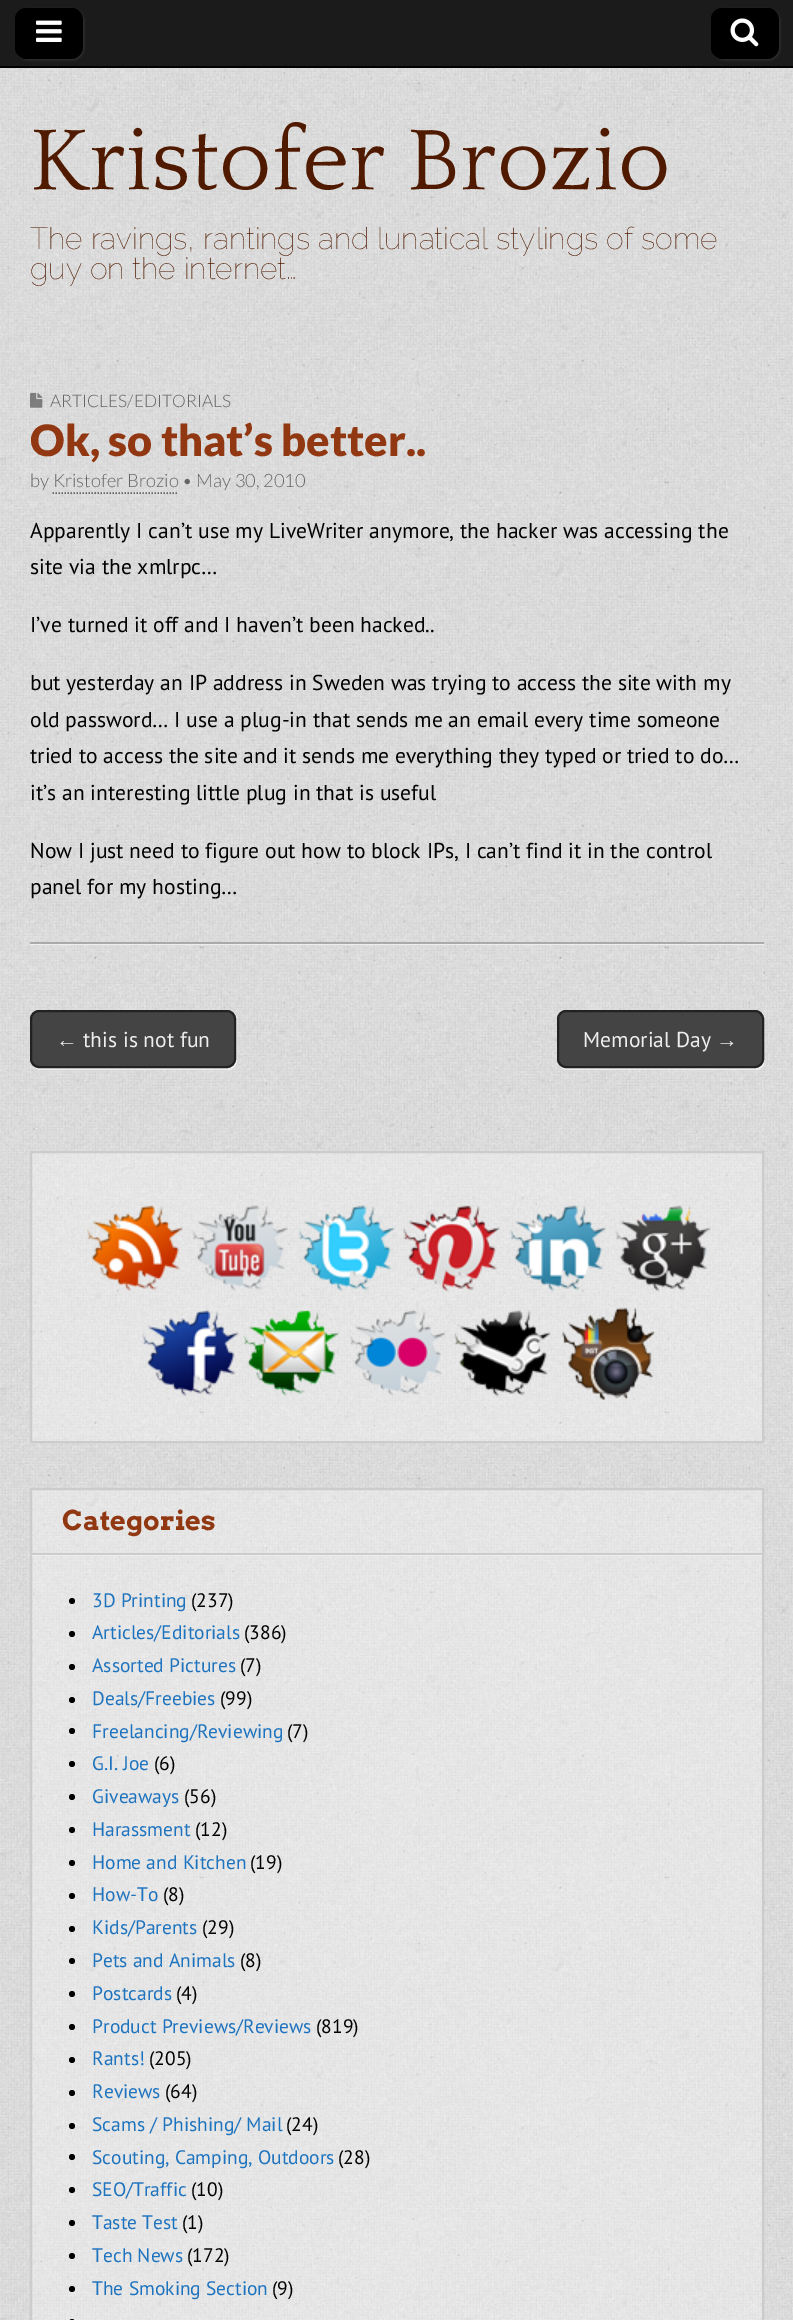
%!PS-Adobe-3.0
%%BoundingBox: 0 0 793 2320
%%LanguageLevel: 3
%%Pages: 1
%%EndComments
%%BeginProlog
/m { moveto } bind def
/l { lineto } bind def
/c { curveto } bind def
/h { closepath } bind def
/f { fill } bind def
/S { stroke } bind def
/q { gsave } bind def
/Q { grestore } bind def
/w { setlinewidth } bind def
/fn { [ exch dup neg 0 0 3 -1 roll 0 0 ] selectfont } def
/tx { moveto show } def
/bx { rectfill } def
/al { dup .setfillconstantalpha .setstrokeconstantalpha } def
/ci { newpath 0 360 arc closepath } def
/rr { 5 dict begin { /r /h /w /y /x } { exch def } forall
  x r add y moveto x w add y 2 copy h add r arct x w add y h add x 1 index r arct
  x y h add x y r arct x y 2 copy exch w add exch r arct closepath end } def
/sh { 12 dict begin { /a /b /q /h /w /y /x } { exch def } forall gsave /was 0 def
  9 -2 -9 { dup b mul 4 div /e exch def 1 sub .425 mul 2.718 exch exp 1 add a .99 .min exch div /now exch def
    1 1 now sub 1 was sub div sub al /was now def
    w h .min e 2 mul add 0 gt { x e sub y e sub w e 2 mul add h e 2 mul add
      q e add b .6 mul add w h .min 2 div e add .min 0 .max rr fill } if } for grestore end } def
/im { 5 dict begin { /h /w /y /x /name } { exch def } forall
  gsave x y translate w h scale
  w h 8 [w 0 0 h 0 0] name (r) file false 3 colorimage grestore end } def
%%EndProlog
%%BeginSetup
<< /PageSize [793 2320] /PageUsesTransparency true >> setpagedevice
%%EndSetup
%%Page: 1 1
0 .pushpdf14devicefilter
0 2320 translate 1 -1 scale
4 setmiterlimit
1 setgray
0 0 793 2320 bx
(image0.raw) 0 68 793 2252 im
0.106 setgray
0 0 793 66 bx
0 setgray
0 66 793 2 bx
0.2 setgray
17 9 67 51 12 1 1 sh
0 setgray
15 8 68 51 12 rr f
28 9 m 72 9 l 75 9 77 10 79 11 c 77 9 74 8 71 8 c 27 8 l 20 8 15 13 15 20 c 15 47 l 15 51 17 54 19 56 c 14 51 16 41 16 34 c 16 25 14 9 28 9 c h f
(image1.raw) 36 20 26 22 im
0.2 setgray
713 9 67 51 12 1 1 sh
0 setgray
711 8 68 51 12 rr f
724 9 m 768 9 l 771 9 773 10 775 11 c 773 9 770 8 767 8 c 723 8 l 716 8 711 13 711 20 c 711 47 l 711 51 713 54 715 56 c 710 51 712 41 712 34 c 712 25 710 9 724 9 c h f
(image2.raw) 730 18 29 29 im
/Quattrocento-Regular 90 fn
0.31 0.102 0 setrgbcolor
(Kristofer Brozio) 30 189 tx
/Raleway-Thin 30.25 fn
(The ravings, rantings and lunatical stylings of some) 30 249 tx
(guy on the internet…) 30 279 tx
0.933 setgray
30 944 m 30 945 l 764 945 l 764 390 l 764 944 l h f
0.667 setgray
30 942 734 2 bx
(image3.raw) 30 392 13 16 im
/Lato-Light 17.25 fn
0.4 setgray
(ARTICLES/EDITORIALS) 50 407 tx
/Lato-Black 43.25 fn
0.569 0.22 0.071 setrgbcolor
(Ok, so that’s better..) 30 456 tx
/Lato-Light 18.4 fn
0.4 setgray
(by Kristofer Brozio • May 30, 2010) 30 487 tx
1.5 w
[1.5 1.5] 0 setdash
52.5 493 m 178.5 493 l S
/PTSans-Regular 21.6 fn
0 setgray
(Apparently I can’t use my LiveWriter anymore, the hacker was accessing the) 30 538 tx
(site via the xmlrpc…) 30 574 tx
(I’ve turned it off and I haven’t been hacked..) 30 632 tx
(but yesterday an IP address in Sweden was trying to access the site with my) 30 690 tx
(old password… I use a plug-in that sends me an email every time someone) 30 727 tx
(tried to access the site and it sends me everything they typed or tried to do…) 30 763 tx
(it’s an interesting little plug in that is useful) 30 800 tx
(Now I just need to figure out how to block IPs, I can’t find it in the control) 30 858 tx
(panel for my hosting…) 30 894 tx
0.933 setgray
34 1066 m 35 1069 38 1070 41 1070 c 228 1070 l 233 1070 237 1066 237 1061 c 237 1020 l 237 1017 236 1015 234 1013 c 235 1014 236 1016 236 1018 c 236 1059 l 236 1064 231 1068 226 1068 c 39 1068 l 37 1068 35 1067 34 1066 c h f
0.267 setgray
31 1011 204 56 8 rr q f Q
0.133 setgray
2 w
[] 0 setdash
S
/LiberationSans-Regular 21.6 fn
0.933 setgray
(←) 56 1047 tx
/PTSans-Regular 21.6 fn
(this is not fun) 83 1047 tx
q
30 989 734 102 rectclip
559 1065 m 561 1068 564 1070 567 1070 c 756 1070 l 761 1070 765 1066 765 1061 c 765 1020 l 765 1017 764 1015 762 1013 c 763 1014 764 1016 764 1018 c 764 1059 l 764 1064 759 1068 754 1068 c 566 1068 l 563 1068 561 1067 559 1065 c h f
Q
0.267 setgray
558 1011 205 56 8 rr q f Q
0.133 setgray
S
0.933 setgray
(Memorial Day) 583 1047 tx
/LiberationSans-Regular 21.6 fn
(→) 716 1047 tx
0.3 al
1 setgray
31 1152 m 763 1152 l 763 1442 l 31 1442 l h f
1 al
0.8 setgray
31 1152 m 763 1152 l 763 1442 l 31 1442 l h S
(image4.raw) 87 1204 96 88 im
(image5.raw) 192 1205 96 86 im
(image6.raw) 298 1204 97 88 im
(image7.raw) 403 1205 97 87 im
(image8.raw) 510 1204 96 88 im
(image9.raw) 615 1205 96 87 im
(image10.raw) 142 1309 97 88 im
(image11.raw) 243 1310 96 87 im
(image12.raw) 349 1310 97 87 im
(image13.raw) 454 1309 97 88 im
(image14.raw) 562 1307 93 93 im
0.3 al
1 setgray
31 1489 m 763 1489 l 763 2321 l 31 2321 l h f
1 al
0.8 setgray
31 1489 m 763 1489 l 763 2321 l 31 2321 l h S
0.933 setgray
32 1555 730 1 bx
0.8 setgray
32 1553 730 2 bx
/Arvo-Bold 27.25 fn
0.569 0.22 0.071 setrgbcolor
(Categories) 62 1530 tx
0 setgray
72 1601 3 ci f
/PTSans-Regular 19.5 fn
0.118 0.451 0.745 setrgbcolor
(3D Printing) 92 1607 tx
0 setgray
(\(237\)) 191 1607 tx
72 1634 3 ci f
0.118 0.451 0.745 setrgbcolor
(Articles/Editorials) 92 1639 tx
0 setgray
(\(386\)) 244 1639 tx
72 1667 3 ci f
0.118 0.451 0.745 setrgbcolor
(Assorted Pictures) 92 1672 tx
0 setgray
(\(7\)) 240 1672 tx
72 1700 3 ci f
0.118 0.451 0.745 setrgbcolor
(Deals/Freebies) 92 1705 tx
0 setgray
(\(99\)) 220 1705 tx
72 1731 3 ci f
0.118 0.451 0.745 setrgbcolor
(Freelancing/Reviewing) 92 1738 tx
0 setgray
(\(7\)) 287 1738 tx
72 1764 3 ci f
0.118 0.451 0.745 setrgbcolor
(G.I. Joe) 92 1770 tx
0 setgray
(\(6\)) 154 1770 tx
72 1797 3 ci f
0.118 0.451 0.745 setrgbcolor
(Giveaways) 92 1803 tx
0 setgray
(\(56\)) 184 1803 tx
72 1830 3 ci f
0.118 0.451 0.745 setrgbcolor
(Harassment) 92 1836 tx
0 setgray
(\(12\)) 195 1836 tx
72 1863 3 ci f
0.118 0.451 0.745 setrgbcolor
(Home and Kitchen) 92 1869 tx
0 setgray
(\(19\)) 250 1869 tx
72 1896 3 ci f
0.118 0.451 0.745 setrgbcolor
(How-To) 92 1901 tx
0 setgray
(\(8\)) 163 1901 tx
72 1929 3 ci f
0.118 0.451 0.745 setrgbcolor
(Kids/Parents) 92 1934 tx
0 setgray
(\(29\)) 202 1934 tx
72 1961 3 ci f
0.118 0.451 0.745 setrgbcolor
(Pets and Animals) 92 1967 tx
0 setgray
(\(8\)) 240 1967 tx
72 1994 3 ci f
0.118 0.451 0.745 setrgbcolor
(Postcards) 92 2000 tx
0 setgray
(\(4\)) 176 2000 tx
72 2027 3 ci f
0.118 0.451 0.745 setrgbcolor
(Product Previews/Reviews) 92 2033 tx
0 setgray
(\(819\)) 316 2033 tx
72 2060 3 ci f
0.118 0.451 0.745 setrgbcolor
(Rants!) 92 2065 tx
0 setgray
(\(205\)) 149 2065 tx
72 2093 3 ci f
0.118 0.451 0.745 setrgbcolor
(Reviews) 92 2098 tx
0 setgray
(\(64\)) 165 2098 tx
72 2126 3 ci f
0.118 0.451 0.745 setrgbcolor
(Scams / Phishing/ Mail) 92 2131 tx
0 setgray
(\(24\)) 286 2131 tx
72 2157 3 ci f
0.118 0.451 0.745 setrgbcolor
(Scouting, Camping, Outdoors) 92 2164 tx
0 setgray
(\(28\)) 338 2164 tx
72 2190 3 ci f
0.118 0.451 0.745 setrgbcolor
(SEO/Traffic) 92 2196 tx
0 setgray
(\(10\)) 191 2196 tx
72 2223 3 ci f
0.118 0.451 0.745 setrgbcolor
(Taste Test) 92 2229 tx
0 setgray
(\(1\)) 182 2229 tx
72 2256 3 ci f
0.118 0.451 0.745 setrgbcolor
(Tech News) 92 2262 tx
0 setgray
(\(172\)) 187 2262 tx
72 2289 3 ci f
0.118 0.451 0.745 setrgbcolor
(The Smoking Section) 92 2295 tx
0 setgray
(\(9\)) 272 2295 tx
69 2319 6 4 3 rr f
.poppdf14devicefilter showpage
%%EOF
